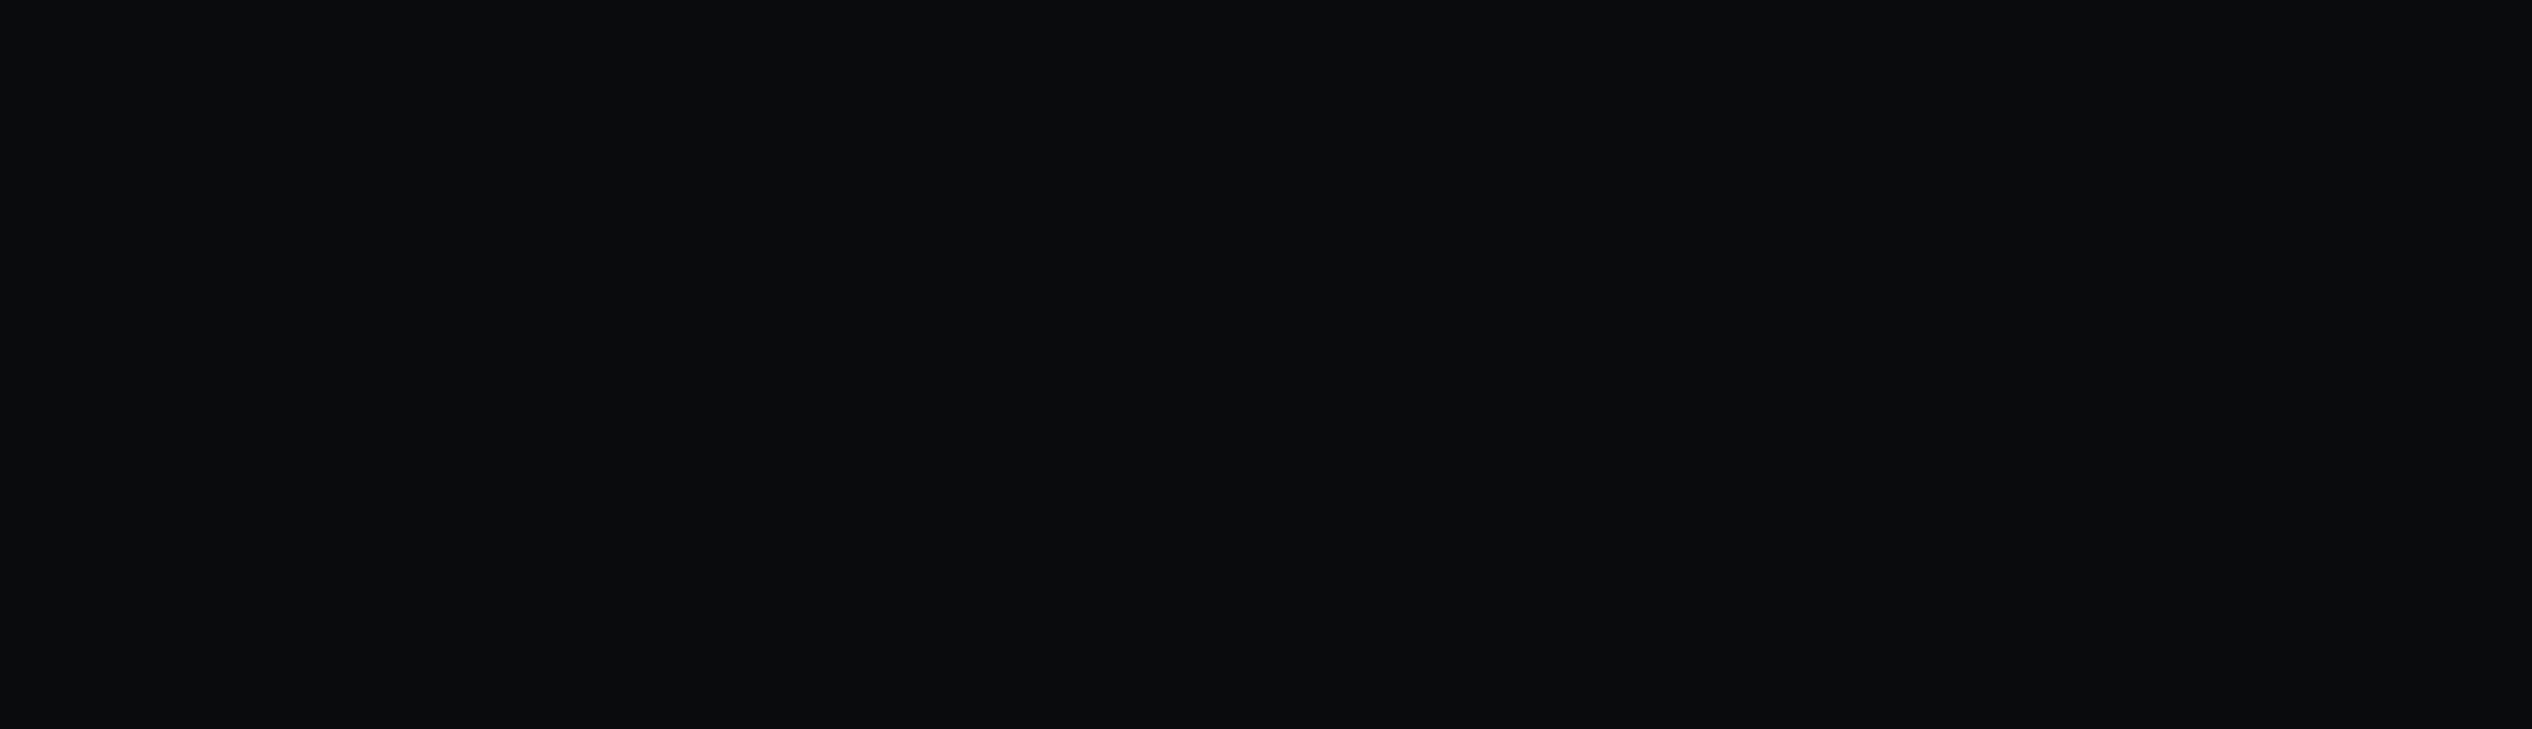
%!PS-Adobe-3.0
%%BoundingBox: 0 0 2532 729
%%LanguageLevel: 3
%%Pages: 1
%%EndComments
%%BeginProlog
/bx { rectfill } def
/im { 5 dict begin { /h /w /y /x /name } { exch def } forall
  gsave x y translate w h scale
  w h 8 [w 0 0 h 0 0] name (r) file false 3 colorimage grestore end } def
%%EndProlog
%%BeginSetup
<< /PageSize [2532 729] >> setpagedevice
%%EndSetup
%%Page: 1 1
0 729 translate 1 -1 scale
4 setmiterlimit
0 setgray
0 0 2532 729 bx
(image0.raw) 0 0 2532 729 im
showpage
%%EOF
